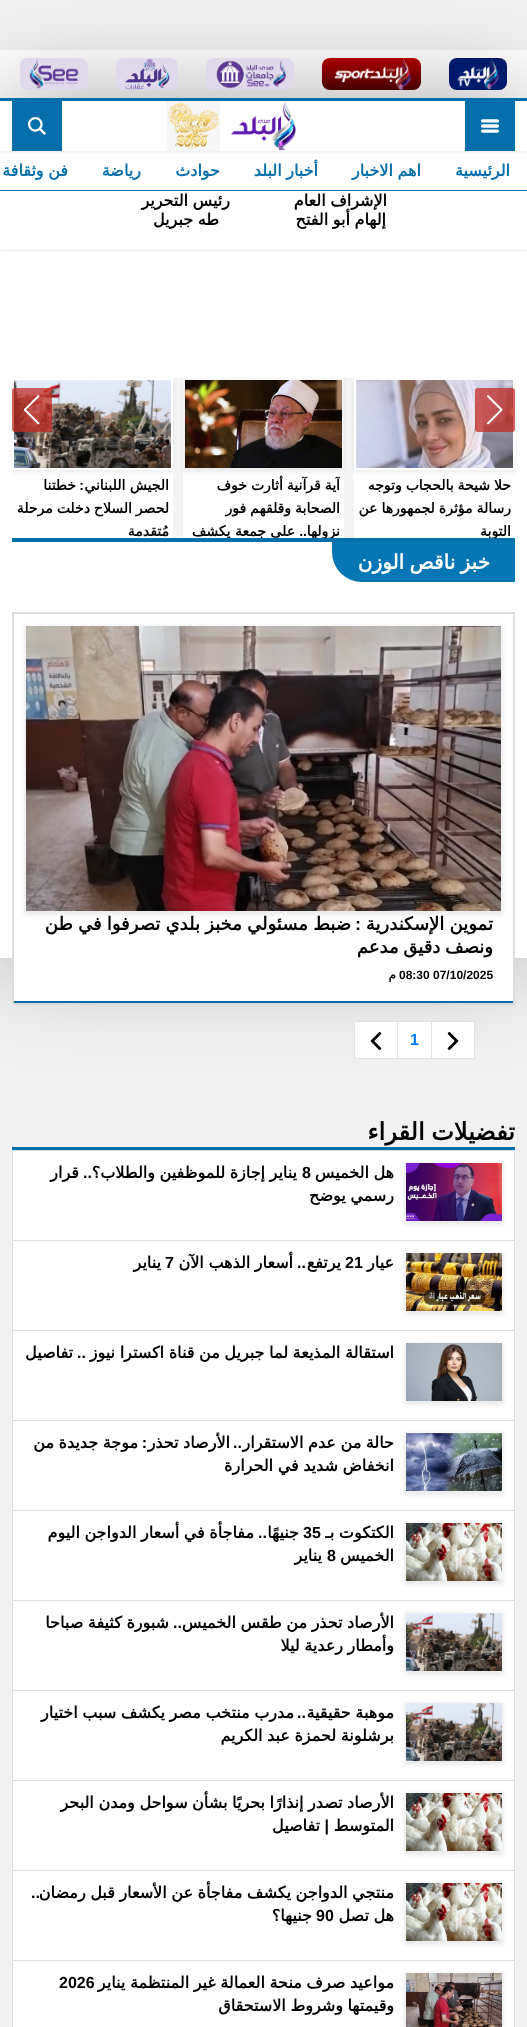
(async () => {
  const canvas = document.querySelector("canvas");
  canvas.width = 527;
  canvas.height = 2027;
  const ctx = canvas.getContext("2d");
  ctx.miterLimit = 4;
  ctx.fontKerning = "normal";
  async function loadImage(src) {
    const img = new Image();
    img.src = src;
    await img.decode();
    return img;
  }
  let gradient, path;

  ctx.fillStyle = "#f1f1f1";
  ctx.fillRect(0, 0, 527, 2027);
  ctx.fillStyle = "#ffffff";
  ctx.fillRect(0, 50, 527, 48);
  ctx.fillStyle = "rgba(0, 0, 0, 0.35)";
  ctx.filter = "blur(51.5px)";
  ctx.beginPath();
  ctx.rect(0, 98, 527, 860);
  ctx.fill();
  ctx.filter = "none";
  ctx.fillStyle = "#001a6b";
  ctx.beginPath();
  ctx.roundRect(449, 58, 58, 32, 8);
  ctx.fill();
  ctx.drawImage(await loadImage("img/1.png"), 457, 58, 42, 32);
  gradient = ctx.createLinearGradient(372, 58, 372, 90);
  gradient.addColorStop(0, "#ac0000");
  gradient.addColorStop(1, "#460000");
  ctx.fillStyle = gradient;
  ctx.beginPath();
  ctx.roundRect(322, 58, 99, 32, 8);
  ctx.fill();
  ctx.drawImage(await loadImage("img/2.png"), 334, 58, 77, 32);
  ctx.fillStyle = "#e0d9eb";
  ctx.beginPath();
  ctx.roundRect(206, 58, 88, 32, 8);
  ctx.fill();
  ctx.drawImage(await loadImage("img/3.png"), 215, 59, 71, 31);
  ctx.beginPath();
  ctx.roundRect(116, 58, 62, 32, 8);
  ctx.fill();
  ctx.drawImage(await loadImage("img/4.png"), 125, 58, 45, 32);
  ctx.beginPath();
  ctx.roundRect(20, 58, 68, 32, 8);
  ctx.fill();
  ctx.drawImage(await loadImage("img/5.png"), 29, 58, 50, 31);
  ctx.fillStyle = "#ffffff";
  ctx.fillRect(0, 101, 527, 857);
  ctx.save();
  ctx.beginPath();
  ctx.rect(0, 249, 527, 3);
  ctx.clip();
  ctx.fillStyle = "rgba(0, 0, 0, 0.07)";
  ctx.filter = "blur(2px)";
  ctx.beginPath();
  ctx.rect(0, 100, 527, 151);
  ctx.fill();
  ctx.filter = "none";
  ctx.restore();
  ctx.save();
  ctx.beginPath();
  ctx.rect(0, 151, 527, 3);
  ctx.clip();
  ctx.fillStyle = "rgba(0, 0, 0, 0.07)";
  ctx.filter = "blur(2px)";
  ctx.beginPath();
  ctx.rect(0, 100, 527, 53);
  ctx.fill();
  ctx.filter = "none";
  ctx.restore();
  ctx.fillStyle = "#056fab";
  ctx.fillRect(0, 98, 527, 3);
  ctx.fillRect(465, 101, 50, 50);
  ctx.drawImage(await loadImage("img/6.png"), 481, 119, 18, 14);
  ctx.drawImage(await loadImage("img/7.png"), 231, 101, 65, 50);
  ctx.drawImage(await loadImage("img/8.png"), 166, 101, 54, 50);
  ctx.fillRect(12, 101, 50, 50);
  ctx.drawImage(await loadImage("img/9.png"), 28, 117, 18, 18);
  ctx.fillRect(0, 190, 527, 1);
  ctx.fillStyle = "#f4f4f4";
  ctx.fillRect(173, 378, 181, 160);
  ctx.save();
  path = new Path2D("M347 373H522V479H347ZM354 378H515V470H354Z");
  ctx.clip(path, "evenodd");
  ctx.fillStyle = "rgba(0, 0, 0, 0.08)";
  ctx.filter = "blur(2px)";
  ctx.beginPath();
  ctx.rect(354, 380, 161, 92);
  ctx.fill();
  ctx.filter = "none";
  ctx.restore();
  ctx.drawImage(await loadImage("img/12.png"), 356, 380, 157, 88);
  ctx.fillStyle = "rgba(194, 43, 37, 0.74)";
  ctx.beginPath();
  ctx.roundRect(475, 388, 40, 44, 3);
  ctx.fill();
  ctx.drawImage(await loadImage("img/10.png"), 486, 395, 17, 30);
  ctx.save();
  path = new Path2D("M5 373H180V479H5ZM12 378H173V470H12Z");
  ctx.clip(path, "evenodd");
  ctx.fillStyle = "rgba(0, 0, 0, 0.08)";
  ctx.filter = "blur(2px)";
  ctx.beginPath();
  ctx.rect(12, 380, 161, 92);
  ctx.fill();
  ctx.filter = "none";
  ctx.restore();
  ctx.drawImage(await loadImage("img/14.png"), 14, 380, 157, 88);
  ctx.beginPath();
  ctx.roundRect(12, 388, 40, 44, 3);
  ctx.fill();
  ctx.drawImage(await loadImage("img/11.png"), 24, 395, 16, 30);
  ctx.fillStyle = "#ffffff";
  ctx.fillRect(183, 378, 161, 160);
  ctx.fillStyle = "rgba(0, 0, 0, 0.08)";
  ctx.filter = "blur(2px)";
  ctx.beginPath();
  ctx.rect(183, 380, 161, 92);
  ctx.fill();
  ctx.filter = "none";
  ctx.drawImage(await loadImage("img/13.png"), 185, 380, 157, 88);
  ctx.fillStyle = "#056fab";
  ctx.fillRect(12, 538, 503, 4);
  ctx.fillStyle = "#0776b5";
  ctx.beginPath();
  ctx.roundRect(332, 542, 183, 40, [0, 0, 0, 30]);
  ctx.fill();
  ctx.fillStyle = "#ffffff";
  ctx.fillRect(14, 958, 499, 43);
  ctx.strokeStyle = "#dcdcdc";
  ctx.strokeRect(12.5, 612.5, 502, 392);
  ctx.strokeRect(13.5, 613.5, 500, 390);
  ctx.fillStyle = "#056fab";
  ctx.fillRect(14, 1001, 499, 2);
  ctx.fillStyle = "rgba(0, 0, 0, 0.08)";
  ctx.filter = "blur(2px)";
  ctx.beginPath();
  ctx.rect(24, 626, 479, 289);
  ctx.fill();
  ctx.filter = "none";
  ctx.drawImage(await loadImage("img/15.png"), 26, 626, 475, 285);
  ctx.fillStyle = "#ffffff";
  ctx.beginPath();
  ctx.rect(431.5, 1021.5, 43, 37);
  ctx.fill();
  ctx.strokeStyle = "#dee2e6";
  ctx.stroke();
  ctx.drawImage(await loadImage("img/16.png"), 447, 1032, 12, 18);
  ctx.beginPath();
  ctx.rect(397.5, 1021.5, 34, 37);
  ctx.fill();
  ctx.stroke();
  ctx.beginPath();
  ctx.rect(354.5, 1021.5, 43, 37);
  ctx.fill();
  ctx.stroke();
  ctx.drawImage(await loadImage("img/17.png"), 370, 1032, 12, 18);
  ctx.fillStyle = "#056fab";
  ctx.fillRect(12, 1147, 503, 3);
  ctx.fillStyle = "#ffffff";
  ctx.beginPath();
  ctx.rect(12.5, 1150.5, 502, 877);
  ctx.fill();
  ctx.strokeStyle = "#dcdcdc";
  ctx.stroke();
  ctx.fillStyle = "#dcdcdc";
  ctx.fillRect(13, 1240, 501, 1);
  ctx.fillStyle = "rgba(0, 0, 0, 0.08)";
  ctx.filter = "blur(2px)";
  ctx.beginPath();
  ctx.rect(404, 1163, 100, 62);
  ctx.fill();
  ctx.filter = "none";
  ctx.drawImage(await loadImage("img/18.png"), 406, 1163, 96, 58);
  ctx.fillStyle = "#dcdcdc";
  ctx.fillRect(13, 1330, 501, 1);
  ctx.fillStyle = "rgba(0, 0, 0, 0.08)";
  ctx.filter = "blur(2px)";
  ctx.beginPath();
  ctx.rect(404, 1253, 100, 62);
  ctx.fill();
  ctx.filter = "none";
  ctx.drawImage(await loadImage("img/19.png"), 406, 1253, 96, 58);
  ctx.fillStyle = "#dcdcdc";
  ctx.fillRect(13, 1420, 501, 1);
  ctx.fillStyle = "rgba(0, 0, 0, 0.08)";
  ctx.filter = "blur(2px)";
  ctx.beginPath();
  ctx.rect(404, 1343, 100, 62);
  ctx.fill();
  ctx.filter = "none";
  ctx.drawImage(await loadImage("img/20.png"), 406, 1343, 96, 58);
  ctx.fillStyle = "#dcdcdc";
  ctx.fillRect(13, 1510, 501, 1);
  ctx.fillStyle = "rgba(0, 0, 0, 0.08)";
  ctx.filter = "blur(2px)";
  ctx.beginPath();
  ctx.rect(404, 1433, 100, 62);
  ctx.fill();
  ctx.filter = "none";
  ctx.drawImage(await loadImage("img/21.png"), 406, 1433, 96, 58);
  ctx.fillStyle = "#dcdcdc";
  ctx.fillRect(13, 1600, 501, 1);
  ctx.fillStyle = "rgba(0, 0, 0, 0.08)";
  ctx.filter = "blur(2px)";
  ctx.beginPath();
  ctx.rect(404, 1523, 100, 62);
  ctx.fill();
  ctx.filter = "none";
  ctx.drawImage(await loadImage("img/22.png"), 406, 1523, 96, 58);
  ctx.fillStyle = "#dcdcdc";
  ctx.fillRect(13, 1690, 501, 1);
  ctx.fillStyle = "rgba(0, 0, 0, 0.08)";
  ctx.filter = "blur(2px)";
  ctx.beginPath();
  ctx.rect(404, 1613, 100, 62);
  ctx.fill();
  ctx.filter = "none";
  ctx.drawImage(await loadImage("img/23.png"), 406, 1613, 96, 58);
  ctx.fillStyle = "#dcdcdc";
  ctx.fillRect(13, 1780, 501, 1);
  ctx.fillStyle = "rgba(0, 0, 0, 0.08)";
  ctx.filter = "blur(2px)";
  ctx.beginPath();
  ctx.rect(404, 1703, 100, 62);
  ctx.fill();
  ctx.filter = "none";
  ctx.drawImage(await loadImage("img/23.png"), 406, 1703, 96, 58);
  ctx.fillStyle = "#dcdcdc";
  ctx.fillRect(13, 1870, 501, 1);
  ctx.fillStyle = "rgba(0, 0, 0, 0.08)";
  ctx.filter = "blur(2px)";
  ctx.beginPath();
  ctx.rect(404, 1793, 100, 62);
  ctx.fill();
  ctx.filter = "none";
  ctx.drawImage(await loadImage("img/24.png"), 406, 1793, 96, 58);
  ctx.fillStyle = "#dcdcdc";
  ctx.fillRect(13, 1960, 501, 1);
  ctx.fillStyle = "rgba(0, 0, 0, 0.08)";
  ctx.filter = "blur(2px)";
  ctx.beginPath();
  ctx.rect(404, 1883, 100, 62);
  ctx.fill();
  ctx.filter = "none";
  ctx.drawImage(await loadImage("img/24.png"), 406, 1883, 96, 58);
  ctx.filter = "blur(2px)";
  ctx.beginPath();
  ctx.rect(404, 1973, 100, 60);
  ctx.fill();
  ctx.filter = "none";
  ctx.drawImage(await loadImage("img/25.png"), 406, 1973, 96, 54);
  ctx.direction = "rtl";
  ctx.font = "bold 16px DejaVu Sans";
  ctx.fillStyle = "#056fab";
  ctx.fillText("الرئيسية", 510, 176);
  ctx.wordSpacing = "-0.5px";
  ctx.fillText("اهم الاخبار", 421, 176);
  ctx.fillText("أخبار البلد", 318, 176);
  ctx.wordSpacing = "0px";
  ctx.fillText("حوادث", 220, 176);
  ctx.fillText("رياضة", 141, 176);
  ctx.wordSpacing = "-0.5px";
  ctx.fillText("فن وثقافة", 68, 176);
  ctx.fillStyle = "#000000";
  for (const [text, x, y] of [
    ["الإشراف العام", 387, 206],
    ["إلهام أبو الفتح", 386, 225],
    ["رئيس التحرير", 230, 206],
    ["طه جبريل", 219, 225],
  ]) {
    ctx.fillText(text, x, y);
  }
  ctx.font = "bold 14px DejaVu Sans";
  ctx.fillText("حلا شيحة بالحجاب وتوجه", 511, 490);
  ctx.save();
  ctx.beginPath();
  ctx.rect(358, 474, 153, 64);
  ctx.clip();
  ctx.fillText("رسالة مؤثرة لجمهورها عن", 511, 513);
  ctx.wordSpacing = "0px";
  ctx.fillText("التوبة", 511, 536);
  ctx.restore();
  ctx.save();
  ctx.beginPath();
  ctx.rect(187, 474, 153, 64);
  ctx.clip();
  ctx.fillText("آية قرآنية أثارت خوف", 340, 490);
  ctx.restore();
  ctx.fillText("الصحابة وقلقهم فور", 340, 513);
  ctx.save();
  ctx.beginPath();
  ctx.rect(187, 474, 153, 64);
  ctx.clip();
  ctx.wordSpacing = "0px";
  ctx.fillText("نزولها", 340, 536);
  ctx.restore();
  ctx.wordSpacing = "0px";
  ctx.font = "bold 14px Liberation Sans";
  ctx.fillText("..", 307, 536);
  ctx.save();
  ctx.beginPath();
  ctx.rect(187, 474, 153, 64);
  ctx.clip();
  ctx.font = "bold 14px DejaVu Sans";
  ctx.fillText("علي جمعة يكشف", 295, 536);
  ctx.restore();
  ctx.font = "bold 14px DejaVu Sans";
  ctx.fillText("الجيش اللبناني", 169, 490);
  ctx.font = "bold 14px Liberation Sans";
  ctx.fillText(":", 84, 490);
  ctx.font = "bold 14px DejaVu Sans";
  ctx.fillText("خطتنا", 76, 490);
  ctx.save();
  ctx.beginPath();
  ctx.rect(16, 474, 153, 64);
  ctx.clip();
  ctx.wordSpacing = "-0.5px";
  ctx.fillText("لحصر السلاح دخلت مرحلة", 169, 513);
  ctx.restore();
  ctx.fillText("مُتقدمة", 169, 536);
  ctx.wordSpacing = "-1px";
  ctx.font = "bold 20px DejaVu Sans";
  ctx.fillStyle = "#ffffff";
  ctx.fillText("خبز ناقص الوزن", 490, 569);
  ctx.wordSpacing = "-0.5px";
  ctx.font = "bold 18px DejaVu Sans";
  ctx.fillStyle = "#000000";
  ctx.fillText("تموين الإسكندرية", 493, 930);
  ctx.wordSpacing = "0px";
  ctx.font = "bold 18px Liberation Sans";
  ctx.fillText(":", 361, 930);
  ctx.wordSpacing = "-0.5px";
  ctx.font = "bold 18px DejaVu Sans";
  ctx.fillText("ضبط مسئولي مخبز بلدي تصرفوا في طن", 351, 930);
  ctx.wordSpacing = "-1px";
  ctx.fillText("ونصف دقيق مدعم", 493, 953);
  ctx.wordSpacing = "0px";
  ctx.direction = "ltr";
  ctx.font = "bold 12px Liberation Sans";
  ctx.fillText("08:30 07/10/2025", 399, 979);
  ctx.direction = "rtl";
  ctx.font = "bold 12px DejaVu Sans";
  ctx.fillText("م", 396, 979);
  ctx.direction = "ltr";
  ctx.font = "bold 16px Liberation Sans";
  ctx.fillStyle = "#007bff";
  ctx.fillText("1", 410, 1045);
  ctx.wordSpacing = "-1px";
  ctx.direction = "rtl";
  ctx.font = "bold 24px DejaVu Sans";
  ctx.fillStyle = "#000000";
  ctx.fillText("ﺗﻔﻀﻴﻼﺕ اﻟﻘﺮاء", 515, 1140);
  ctx.wordSpacing = "-0.5px";
  ctx.font = "bold 16px DejaVu Sans";
  ctx.fillText("هل الخميس", 394, 1178);
  ctx.wordSpacing = "0px";
  ctx.direction = "ltr";
  ctx.font = "bold 16px Liberation Sans";
  ctx.fillText("8", 302, 1178);
  ctx.wordSpacing = "-0.5px";
  ctx.direction = "rtl";
  ctx.font = "bold 16px DejaVu Sans";
  ctx.fillText("يناير إجازة للموظفين والطلاب؟", 297, 1178);
  ctx.wordSpacing = "0px";
  ctx.font = "bold 16px Liberation Sans";
  ctx.fillText("..", 92, 1178);
  ctx.font = "bold 16px DejaVu Sans";
  ctx.fillText("قرار", 79, 1178);
  ctx.wordSpacing = "-0.5px";
  ctx.fillText("رسمي يوضح", 394, 1201);
  ctx.wordSpacing = "0px";
  ctx.fillText("عيار", 394, 1268);
  ctx.direction = "ltr";
  ctx.font = "bold 16px Liberation Sans";
  ctx.fillText("21", 345, 1268);
  ctx.direction = "rtl";
  ctx.font = "bold 16px DejaVu Sans";
  ctx.fillText("يرتفع", 341, 1268);
  ctx.font = "bold 16px Liberation Sans";
  ctx.fillText("..", 306, 1268);
  ctx.wordSpacing = "-0.5px";
  ctx.font = "bold 16px DejaVu Sans";
  ctx.fillText("أسعار الذهب الآن", 293, 1268);
  ctx.wordSpacing = "0px";
  ctx.direction = "ltr";
  ctx.font = "bold 16px Liberation Sans";
  ctx.fillText("7", 165, 1268);
  ctx.direction = "rtl";
  ctx.font = "bold 16px DejaVu Sans";
  ctx.fillText("يناير", 161, 1268);
  ctx.save();
  ctx.beginPath();
  ctx.rect(23, 1341, 371, 69);
  ctx.clip();
  ctx.wordSpacing = "-0.5px";
  ctx.fillText("استقالة المذيعة لما جبريل من قناة اكسترا نيوز", 394, 1358);
  ctx.restore();
  ctx.font = "bold 16px Liberation Sans";
  ctx.fillText("..", 86, 1358);
  ctx.font = "bold 16px DejaVu Sans";
  ctx.fillText("تفاصيل", 73, 1358);
  ctx.font = "bold 16px Liberation Sans";
  ctx.fillText("..", 242, 1448);
  ctx.wordSpacing = "-0.5px";
  ctx.font = "bold 16px DejaVu Sans";
  ctx.fillText("حالة من عدم الاستقرار", 394, 1448);
  ctx.fillText("الأرصاد تحذر", 230, 1448);
  ctx.wordSpacing = "0px";
  ctx.font = "bold 16px Liberation Sans";
  ctx.fillText(":", 147, 1448);
  ctx.wordSpacing = "-0.5px";
  ctx.font = "bold 16px DejaVu Sans";
  ctx.fillText("موجة جديدة من", 138, 1448);
  ctx.save();
  ctx.beginPath();
  ctx.rect(23, 1431, 371, 69);
  ctx.clip();
  ctx.fillText("انخفاض شديد في الحرارة", 394, 1471);
  ctx.restore();
  ctx.fillText("الكتكوت بـ", 394, 1538);
  ctx.wordSpacing = "0px";
  ctx.direction = "ltr";
  ctx.font = "bold 16px Liberation Sans";
  ctx.fillText("35", 303, 1538);
  ctx.direction = "rtl";
  ctx.font = "bold 16px DejaVu Sans";
  ctx.fillText("جنيهًا", 299, 1538);
  ctx.font = "bold 16px Liberation Sans";
  ctx.fillText("..", 267, 1538);
  ctx.wordSpacing = "-0.5px";
  ctx.font = "bold 16px DejaVu Sans";
  ctx.fillText("مفاجأة في أسعار الدواجن اليوم", 254, 1538);
  ctx.wordSpacing = "0px";
  ctx.fillText("الخميس", 394, 1561);
  ctx.direction = "ltr";
  ctx.font = "bold 16px Liberation Sans";
  ctx.fillText("8", 327, 1561);
  ctx.direction = "rtl";
  ctx.font = "bold 16px DejaVu Sans";
  ctx.fillText("يناير", 322, 1561);
  ctx.save();
  ctx.beginPath();
  ctx.rect(23, 1611, 371, 69);
  ctx.clip();
  ctx.wordSpacing = "-0.5px";
  ctx.fillText("الأرصاد تحذر من طقس الخميس", 394, 1628);
  ctx.restore();
  ctx.font = "bold 16px Liberation Sans";
  ctx.fillText("..", 182, 1628);
  ctx.wordSpacing = "-0.5px";
  ctx.font = "bold 16px DejaVu Sans";
  for (const [text, x, y] of [
    ["شبورة كثيفة صباحا", 169, 1628],
    ["وأمطار رعدية ليلا", 394, 1651],
    ["موهبة حقيقية", 394, 1718],
  ]) {
    ctx.fillText(text, x, y);
  }
  ctx.wordSpacing = "0px";
  ctx.font = "bold 16px Liberation Sans";
  ctx.fillText("..", 306, 1718);
  ctx.wordSpacing = "-0.5px";
  ctx.font = "bold 16px DejaVu Sans";
  ctx.fillText("مدرب منتخب مصر يكشف سبب اختيار", 294, 1718);
  ctx.save();
  ctx.beginPath();
  ctx.rect(23, 1701, 371, 69);
  ctx.clip();
  ctx.fillText("برشلونة لحمزة عبد الكريم", 394, 1741);
  ctx.restore();
  ctx.save();
  ctx.beginPath();
  ctx.rect(23, 1791, 371, 69);
  ctx.clip();
  ctx.fillText("الأرصاد تصدر إنذارًا بحريًا بشأن سواحل ومدن البحر", 394, 1808);
  ctx.restore();
  ctx.wordSpacing = "0px";
  ctx.fillText("المتوسط", 394, 1831);
  ctx.font = "bold 16px Liberation Sans";
  ctx.fillText("|", 329, 1831);
  ctx.font = "bold 16px DejaVu Sans";
  ctx.fillText("تفاصيل", 320, 1831);
  ctx.save();
  ctx.beginPath();
  ctx.rect(23, 1881, 371, 69);
  ctx.clip();
  ctx.wordSpacing = "-0.5px";
  ctx.fillText("منتجي الدواجن يكشف مفاجأة عن الأسعار قبل رمضان", 394, 1898);
  ctx.restore();
  ctx.font = "bold 16px Liberation Sans";
  ctx.fillText("..", 40, 1898);
  ctx.wordSpacing = "-0.5px";
  ctx.font = "bold 16px DejaVu Sans";
  ctx.fillText("هل تصل", 394, 1921);
  ctx.wordSpacing = "0px";
  ctx.direction = "ltr";
  ctx.font = "bold 16px Liberation Sans";
  ctx.fillText("90", 316, 1921);
  ctx.direction = "rtl";
  ctx.font = "bold 16px DejaVu Sans";
  ctx.fillText("جنيها؟", 312, 1921);
  ctx.save();
  ctx.beginPath();
  ctx.rect(23, 1971, 371, 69);
  ctx.clip();
  ctx.wordSpacing = "-0.5px";
  ctx.fillText("مواعيد صرف منحة العمالة غير المنتظمة يناير", 394, 1988);
  ctx.restore();
  ctx.direction = "ltr";
  ctx.font = "bold 16px Liberation Sans";
  ctx.fillText("2026", 59, 1988);
  ctx.wordSpacing = "-0.5px";
  ctx.direction = "rtl";
  ctx.font = "bold 16px DejaVu Sans";
  ctx.fillText("وقيمتها وشروط الاستحقاق", 394, 2011);
})();
